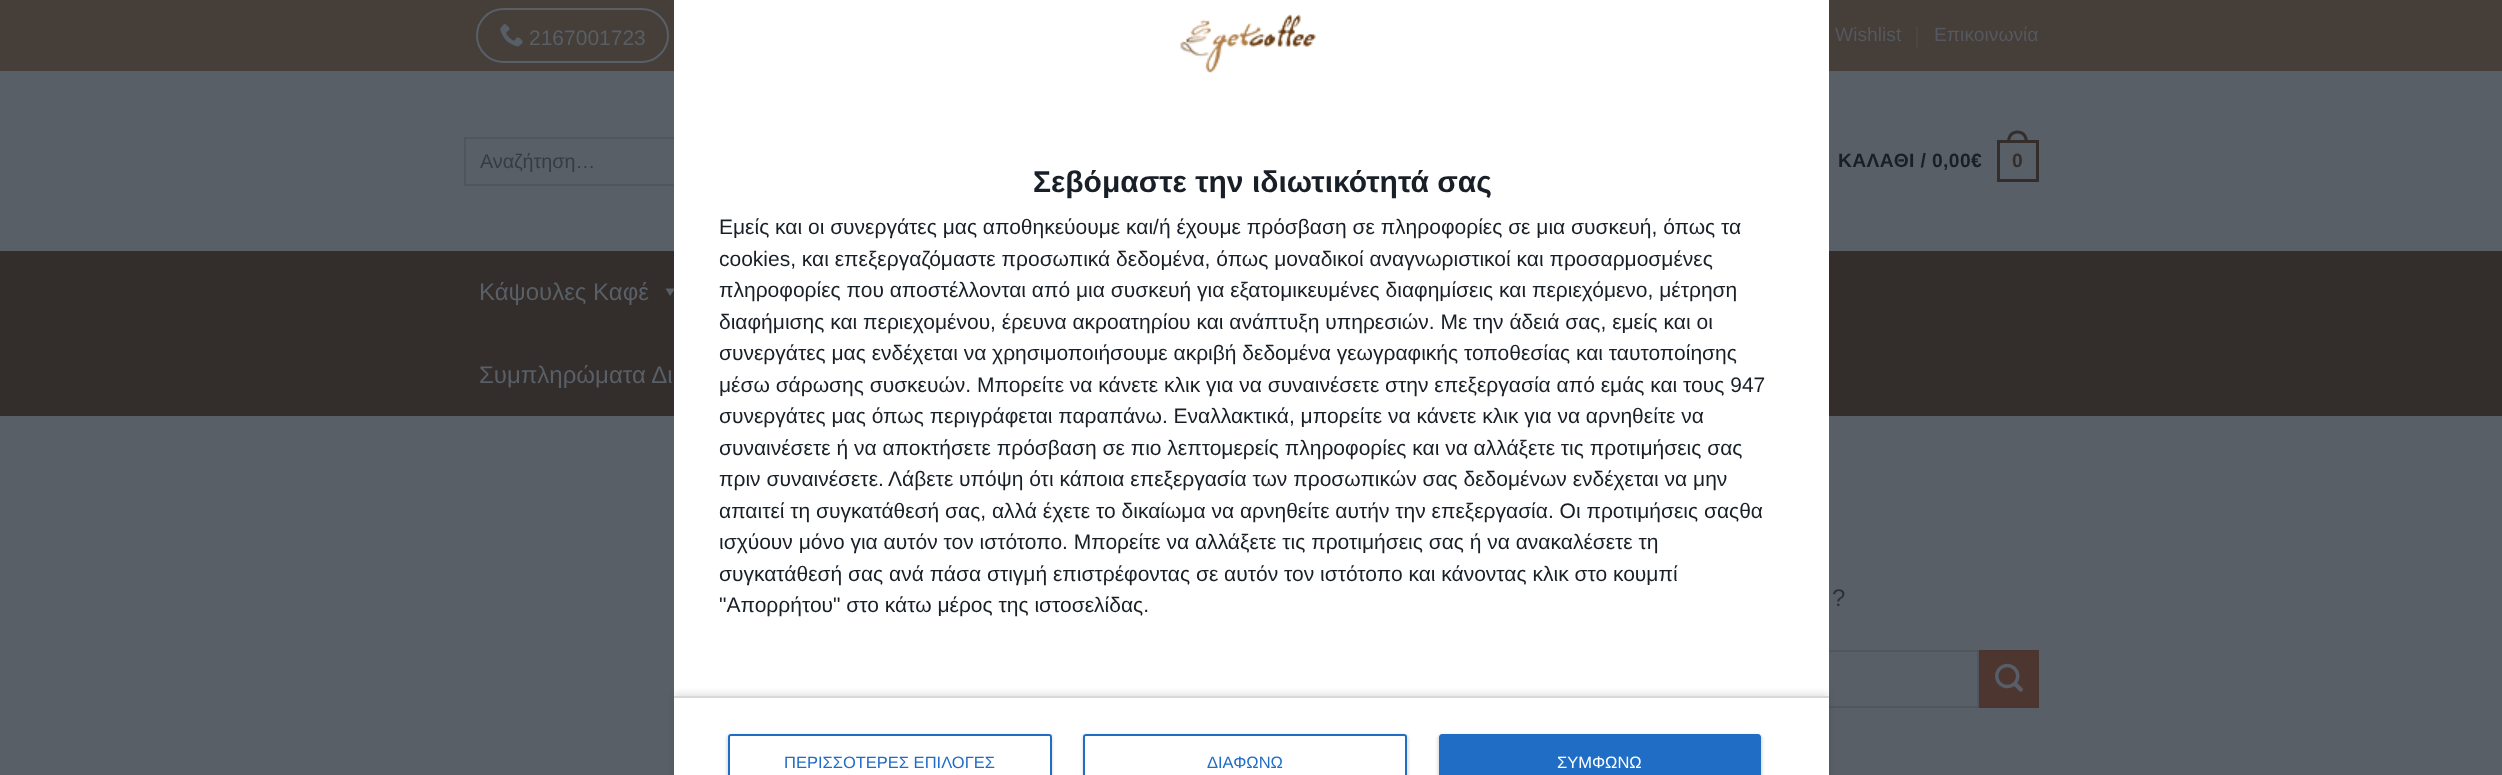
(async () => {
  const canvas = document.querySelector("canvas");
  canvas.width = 2502;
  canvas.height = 775;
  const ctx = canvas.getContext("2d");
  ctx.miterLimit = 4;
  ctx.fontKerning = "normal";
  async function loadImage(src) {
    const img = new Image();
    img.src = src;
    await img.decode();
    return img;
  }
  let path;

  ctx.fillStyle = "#595f67";
  ctx.fillRect(0, 0, 2502, 775);
  ctx.fillStyle = "#453e39";
  ctx.fillRect(0, 0, 2502, 71);
  ctx.beginPath();
  ctx.roundRect(477, 9, 191, 53, 26.5);
  ctx.strokeStyle = "#595f67";
  ctx.lineWidth = 2;
  ctx.stroke();
  ctx.drawImage(await loadImage("img/1.png"), 500, 24, 23, 23);
  ctx.fillStyle = "#494542";
  ctx.fillRect(1916, 26, 2, 22);
  ctx.strokeStyle = "#50565e";
  ctx.strokeRect(465, 138, 295, 47);
  ctx.strokeStyle = "#332e2b";
  ctx.lineWidth = 3;
  ctx.strokeRect(1998.5, 141.5, 39, 39);
  ctx.fillStyle = "#332e2b";
  path = new Path2D("M2017.5 130.5C2024.5 130.5 2028 136 2028 142.5H2007C2007 136 2010.5 130.5 2017.5 130.5ZM2017.5 133.5C2023 133.5 2025 138 2025 142.5H2010C2010 138 2012 133.5 2017.5 133.5Z");
  ctx.fill(path, "evenodd");
  ctx.fillRect(0, 251, 2502, 165);
  ctx.fillStyle = "#595f67";
  path = new Path2D("M675 288.5L670 296L665.5 288.5Z");
  ctx.fill(path);
  ctx.strokeStyle = "#50565e";
  ctx.lineWidth = 2;
  ctx.strokeRect(870, 651, 1108, 56);
  ctx.fillStyle = "#4e3630";
  ctx.beginPath();
  ctx.rect(1980, 651, 58, 56);
  ctx.fill();
  ctx.strokeStyle = "#4c352f";
  ctx.stroke();
  ctx.drawImage(await loadImage("img/2.png"), 1995, 663, 28, 29);
  ctx.fillStyle = "#ffffff";
  ctx.fillRect(674, 0, 1155, 775);
  ctx.drawImage(await loadImage("img/3.png"), 1180, 14, 136, 59);
  ctx.save();
  path = new Path2D("M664 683H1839V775H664ZM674 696H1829V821H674Z");
  ctx.clip(path, "evenodd");
  ctx.fillStyle = "rgba(0, 0, 0, 0.1)";
  ctx.filter = "blur(3px)";
  ctx.beginPath();
  ctx.rect(674, 693, 1155, 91);
  ctx.fill();
  ctx.filter = "none";
  ctx.restore();
  ctx.fillStyle = "#d8d8d8";
  ctx.fillRect(674, 696, 1155, 2);
  ctx.fillStyle = "rgba(0, 0, 0, 0.1)";
  ctx.filter = "blur(1px)";
  ctx.beginPath();
  ctx.roundRect(726, 734, 327, 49, 5);
  ctx.fill();
  ctx.filter = "none";
  ctx.fillStyle = "#ffffff";
  path = new Path2D("M731 734H1049C1050.5 734 1052 735.5 1052 737V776H728V737C728 735.5 729.5 734 731 734Z");
  ctx.fill(path);
  ctx.beginPath();
  ctx.roundRect(729, 735, 322, 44, 2);
  ctx.strokeStyle = "#206dc5";
  ctx.stroke();
  ctx.fillStyle = "rgba(0, 0, 0, 0.1)";
  ctx.filter = "blur(1px)";
  ctx.beginPath();
  ctx.roundRect(1082, 734, 327, 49, 5);
  ctx.fill();
  ctx.filter = "none";
  ctx.fillStyle = "#ffffff";
  path = new Path2D("M1086 734H1404C1405.5 734 1407 735.5 1407 737V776H1083V737C1083 735.5 1084.5 734 1086 734Z");
  ctx.fill(path);
  ctx.beginPath();
  ctx.roundRect(1084, 735, 322, 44, 2);
  ctx.stroke();
  ctx.fillStyle = "rgba(0, 0, 0, 0.1)";
  ctx.filter = "blur(1px)";
  ctx.beginPath();
  ctx.roundRect(1437, 734, 326, 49, 5);
  ctx.fill();
  ctx.filter = "none";
  ctx.fillStyle = "#206dc5";
  path = new Path2D("M1442 734H1758C1759.5 734 1761 735.5 1761 737V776H1439V737C1439 735.5 1440.5 734 1442 734Z");
  ctx.fill(path);
  ctx.font = "21px Liberation Sans";
  ctx.fillStyle = "#595f67";
  ctx.fillText("2167001723", 529, 45);
  ctx.font = "19.25px Liberation Sans";
  ctx.fillStyle = "#55585e";
  ctx.fillText("Wishlist", 1835, 41);
  ctx.fillText("Επικοινωνία", 1934, 41);
  ctx.font = "19.75px Liberation Sans";
  ctx.fillStyle = "#363c44";
  ctx.fillText("Αναζήτηση…", 480, 168);
  ctx.letterSpacing = "0.4px";
  ctx.font = "bold 19.25px Liberation Sans";
  ctx.fillStyle = "#191f27";
  ctx.fillText("ΚΑΛΑΘΙ / 0,00€", 1838, 167);
  ctx.fillStyle = "#332e2b";
  ctx.fillText("0", 2012, 167);
  ctx.letterSpacing = "0px";
  ctx.font = "24px Liberation Sans";
  ctx.fillStyle = "#595f67";
  ctx.fillText("Κάψουλες Καφέ", 479, 300);
  ctx.fillText("Συμπληρώματα Δι", 479, 383);
  ctx.fillStyle = "#2b313a";
  ctx.fillText("?", 1832, 606);
  ctx.font = "bold 30px Liberation Sans";
  ctx.fillStyle = "#191f27";
  ctx.fillText("Σεβόμαστε την ιδιωτικότητά σας", 1033, 192);
  ctx.font = "21px Liberation Sans";
  for (const [text, x, y] of [
    ["Εμείς και οι συνεργάτες μας αποθηκεύουμε και/ή έχουμε πρόσβαση σε πληροφορίες σε μια συσκευή, όπως τα", 719, 234],
    ["cookies, και επεξεργαζόμαστε προσωπικά δεδομένα, όπως μοναδικοί αναγνωριστικοί και προσαρμοσμένες", 719, 266],
    ["πληροφορίες που αποστέλλονται από μια συσκευή για εξατομικευμένες διαφημίσεις και περιεχόμενο, μέτρηση", 719, 297],
    ["διαφήμισης και περιεχομένου, έρευνα ακροατηρίου και ανάπτυξη υπηρεσιών. Με την άδειά σας, εμείς και οι", 719, 329],
    ["συνεργάτες μας ενδέχεται να χρησιμοποιήσουμε ακριβή δεδομένα γεωγραφικής τοποθεσίας και ταυτοποίησης", 719, 360],
    ["μέσω σάρωσης συσκευών. Μπορείτε να κάνετε κλικ για να συναινέσετε στην επεξεργασία από εμάς και τους 947", 719, 392],
    ["συνεργάτες μας όπως περιγράφεται παραπάνω. Εναλλακτικά, μπορείτε να κάνετε κλικ για να αρνηθείτε να", 719, 423],
    ["συναινέσετε ή να αποκτήσετε πρόσβαση σε πιο λεπτομερείς πληροφορίες και να αλλάξετε τις προτιμήσεις σας", 719, 455],
    ["πριν συναινέσετε.", 719, 486],
    ["Λάβετε υπόψη ότι κάποια επεξεργασία των προσωπικών σας δεδομένων ενδέχεται να μην", 888, 486],
    ["απαιτεί τη συγκατάθεσή σας, αλλά έχετε το δικαίωμα να αρνηθείτε αυτήν την επεξεργασία. Οι προτιμήσεις σαςθα", 719, 518],
    ["ισχύουν μόνο για αυτόν τον ιστότοπο. Μπορείτε να αλλάξετε τις προτιμήσεις σας ή να ανακαλέσετε τη", 719, 549],
    ["συγκατάθεσή σας ανά πάσα στιγμή επιστρέφοντας σε αυτόν τον ιστότοπο και κάνοντας κλικ στο κουμπί", 719, 581],
    ["\"Απορρήτου\" στο κάτω μέρος της ιστοσελίδας.", 719, 612],
  ]) {
    ctx.fillText(text, x, y);
  }
  ctx.font = "16.5px Liberation Sans";
  ctx.fillStyle = "#206dc5";
  ctx.fillText("ΠΕΡΙΣΣΟΤΕΡΕΣ ΕΠΙΛΟΓΕΣ", 784, 768);
  ctx.fillText("ΔΙΑΦΩΝΩ", 1207, 768);
  ctx.fillStyle = "#ffffff";
  ctx.fillText("ΣΥΜΦΩΝΩ", 1557, 768);
})();
